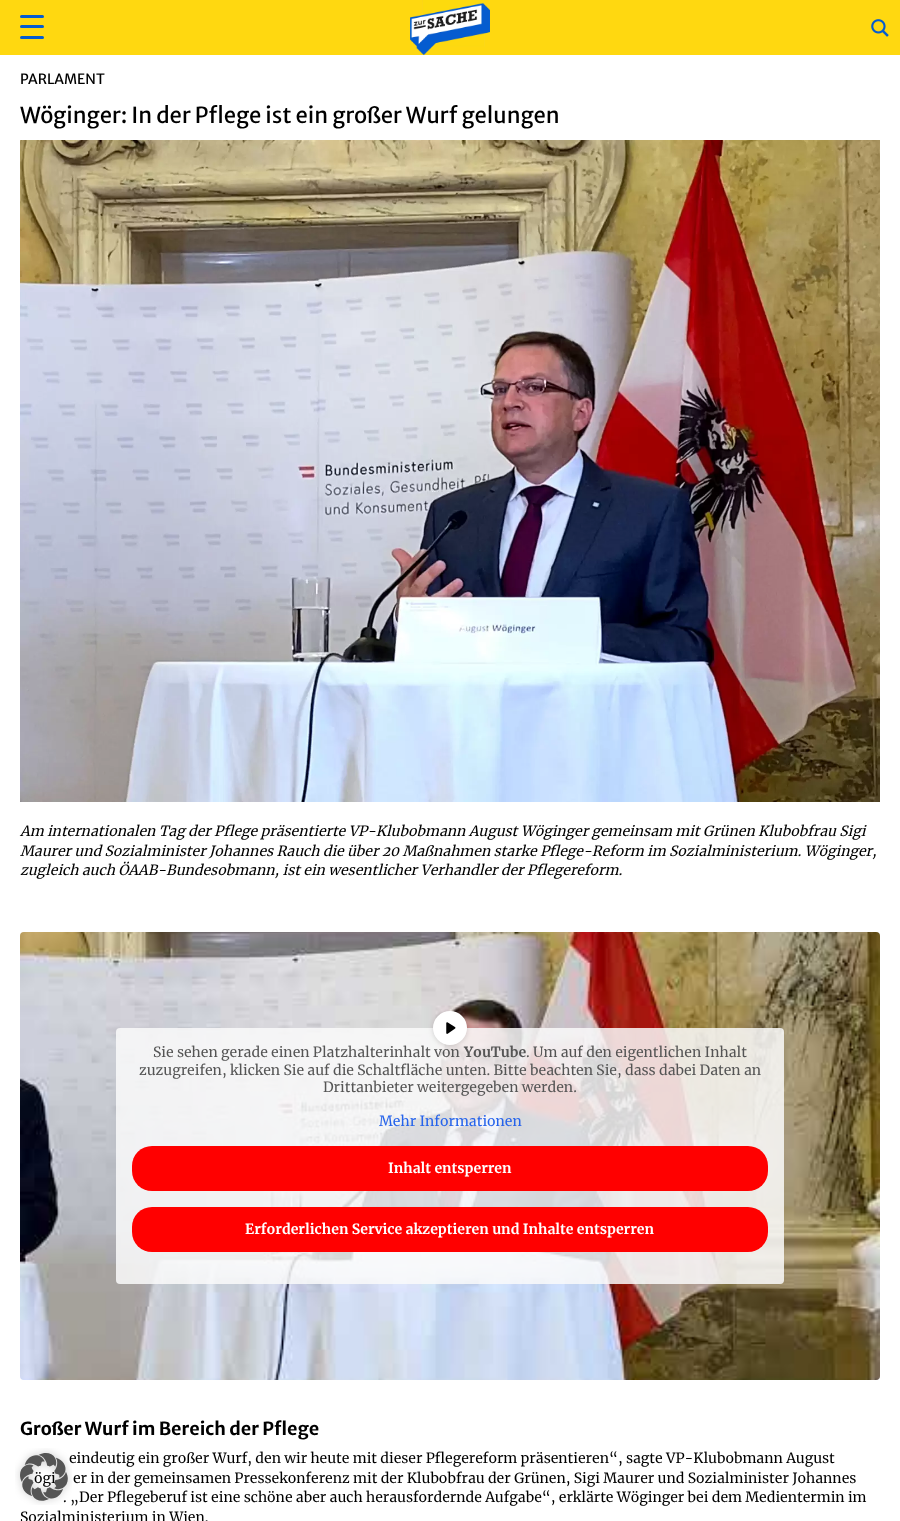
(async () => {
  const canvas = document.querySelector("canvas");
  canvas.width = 900;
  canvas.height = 1521;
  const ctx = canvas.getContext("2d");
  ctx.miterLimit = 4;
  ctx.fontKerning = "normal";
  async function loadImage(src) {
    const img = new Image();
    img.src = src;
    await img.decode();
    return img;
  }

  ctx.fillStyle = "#ffffff";
  ctx.fillRect(0, 0, 900, 1521);
  ctx.fillStyle = "#ffd810";
  ctx.fillRect(0, 0, 900, 55);
  ctx.fillStyle = "#055cd0";
  ctx.beginPath();
  ctx.roundRect(20, 25, 24, 3, 1.5);
  ctx.fill();
  ctx.beginPath();
  ctx.roundRect(20, 15, 24, 3, 1.5);
  ctx.fill();
  ctx.beginPath();
  ctx.roundRect(20, 36, 24, 3, 1.5);
  ctx.fill();
  ctx.drawImage(await loadImage("img/1.png"), 410, 0, 80, 55);
  ctx.drawImage(await loadImage("img/2.png"), 871, 19, 18, 18);
  ctx.drawImage(await loadImage("img/3.png"), 20, 140, 860, 662);
  ctx.drawImage(await loadImage("img/4.png"), 20, 932, 860, 448);
  ctx.fillStyle = "rgba(250, 250, 250, 0.85)";
  ctx.beginPath();
  ctx.roundRect(116, 1028, 668, 256, 4);
  ctx.fill();
  ctx.fillStyle = "rgba(0, 0, 0, 0.15)";
  ctx.filter = "blur(2.5px)";
  ctx.beginPath();
  ctx.roundRect(433, 1012, 34, 34, 17);
  ctx.fill();
  ctx.filter = "none";
  ctx.fillStyle = "#ffffff";
  ctx.beginPath();
  ctx.arc(450, 1028, 17, 0, Math.PI * 2);
  ctx.fill();
  ctx.drawImage(await loadImage("img/5.png"), 446, 1022, 10, 12);
  ctx.fillStyle = "#ff0000";
  ctx.beginPath();
  ctx.roundRect(132, 1146, 636, 45, 20);
  ctx.fill();
  ctx.beginPath();
  ctx.roundRect(132, 1207, 636, 45, 20);
  ctx.fill();
  ctx.font = "14px Merriweather Sans";
  ctx.fillStyle = "#000000";
  ctx.fillText("PARLAMENT", 20, 84);
  ctx.font = "22px Merriweather Sans";
  ctx.fillText("Wöginger: In der Pflege ist ein großer Wurf gelungen", 20, 123);
  ctx.font = "italic 14px Merriweather";
  for (const [text, x, y] of [
    ["Am internationalen Tag der Pflege präsentierte VP-Klubobmann August Wöginger gemeinsam mit Grünen Klubobfrau Sigi", 20, 836],
    ["Maurer und Sozialminister Johannes Rauch die über 20 Maßnahmen starke Pflege-Reform im Sozialministerium. Wöginger,", 20, 856],
    ["zugleich auch ÖAAB-Bundesobmann, ist ein wesentlicher Verhandler der Pflegereform.", 20, 875],
  ]) {
    ctx.fillText(text, x, y);
  }
  ctx.font = "14px Merriweather";
  ctx.fillStyle = "#555555";
  ctx.fillText("Sie sehen gerade einen Platzhalterinhalt von", 153, 1057);
  ctx.font = "bold 14px Merriweather";
  ctx.fillText("YouTube", 464, 1057);
  ctx.font = "14px Merriweather";
  for (const [text, x, y] of [
    [". Um auf den eigentlichen Inhalt", 526, 1057],
    ["zuzugreifen, klicken Sie auf die Schaltfläche unten. Bitte beachten Sie, dass dabei Daten an", 139, 1075],
    ["Drittanbieter weitergegeben werden.", 323, 1092],
  ]) {
    ctx.fillText(text, x, y);
  }
  ctx.fillStyle = "#2563eb";
  ctx.fillText("Mehr Informationen", 379, 1126);
  ctx.font = "bold 14px Merriweather";
  ctx.fillStyle = "#ffffff";
  ctx.fillText("Inhalt entsperren", 388, 1173);
  ctx.fillText("Erforderlichen Service akzeptieren und Inhalte entsperren", 245, 1234);
  ctx.font = "bold 18px Merriweather Sans";
  ctx.fillStyle = "#000000";
  ctx.fillText("Großer Wurf im Bereich der Pflege", 20, 1435);
  ctx.font = "14px Merriweather";
  for (const [text, x, y] of [
    ["eindeutig ein großer Wurf, den wir heute mit dieser Pflegereform präsentieren“, sagte VP-Klubobmann August", 69, 1463],
    ["ögi", 34, 1483],
    ["er in der gemeinsamen Pressekonferenz mit der Klubobfrau der Grünen, Sigi Maurer und Sozialminister Johannes", 73, 1483],
    [". „Der Pflegeberuf ist eine schöne aber auch herausfordernde Aufgabe“, erklärte Wöginger bei dem Medientermin im", 63, 1502],
    ["Sozialministerium in Wien.", 20, 1522],
  ]) {
    ctx.fillText(text, x, y);
  }
  ctx.drawImage(await loadImage("img/6.png"), 15, 1448, 57, 57);
})();
